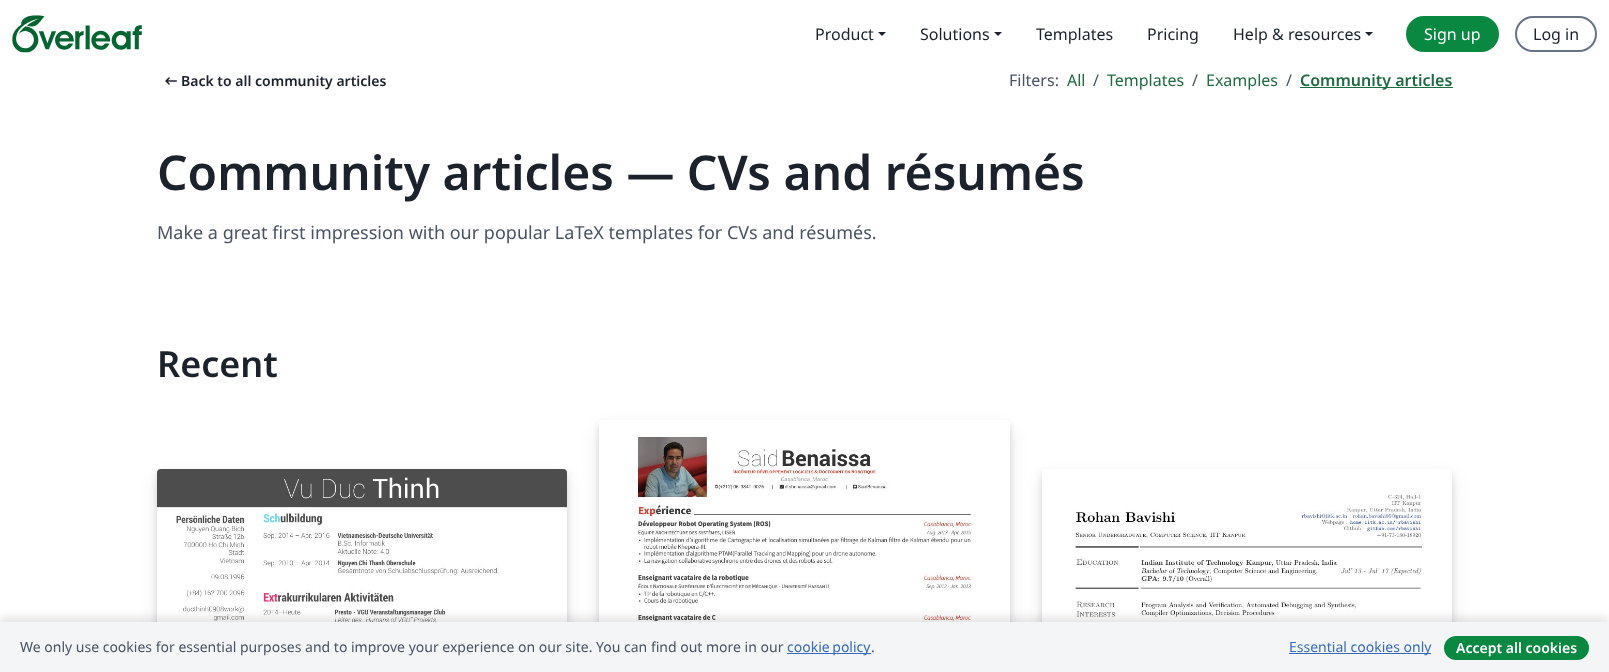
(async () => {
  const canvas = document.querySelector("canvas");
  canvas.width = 1609;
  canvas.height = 672;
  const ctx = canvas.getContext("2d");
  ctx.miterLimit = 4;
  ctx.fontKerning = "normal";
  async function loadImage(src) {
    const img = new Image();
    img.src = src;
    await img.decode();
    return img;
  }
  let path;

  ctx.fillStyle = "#ffffff";
  ctx.fillRect(0, 0, 1609, 672);
  ctx.drawImage(await loadImage("img/1.png"), 12, 15, 130, 38);
  ctx.fillStyle = "#1b222c";
  path = new Path2D("M878 32H886L882 36Z");
  ctx.fill(path);
  path = new Path2D("M994 32H1002L998 36Z");
  ctx.fill(path);
  path = new Path2D("M1365 32H1373L1369 36Z");
  ctx.fill(path);
  ctx.fillStyle = "#098842";
  ctx.beginPath();
  ctx.roundRect(1407, 17, 91, 34, 17);
  ctx.fill();
  ctx.strokeStyle = "#098842";
  ctx.lineWidth = 2;
  ctx.stroke();
  ctx.beginPath();
  ctx.roundRect(1516, 17, 80, 34, 17);
  ctx.strokeStyle = "#677283";
  ctx.stroke();
  ctx.drawImage(await loadImage("img/2.png"), 165, 77, 12, 8);
  ctx.fillStyle = "#1e6b41";
  ctx.fillRect(1300, 87, 153, 1);
  ctx.fillStyle = "rgba(30, 37, 48, 0.12)";
  ctx.filter = "blur(3px)";
  ctx.beginPath();
  ctx.roundRect(157, 473, 410, 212, 4);
  ctx.fill();
  ctx.filter = "none";
  ctx.filter = "blur(8px)";
  ctx.beginPath();
  ctx.roundRect(157, 477, 410, 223, 4);
  ctx.fill();
  ctx.filter = "none";
  ctx.drawImage(await loadImage("img/3.png"), 157, 469, 410, 153);
  ctx.save();
  path = new Path2D("M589 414H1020V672H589ZM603 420H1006C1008 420 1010 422 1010 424V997C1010 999 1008 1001 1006 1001H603C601 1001 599 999 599 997V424C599 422 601 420 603 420Z");
  ctx.clip(path, "evenodd");
  ctx.filter = "blur(3px)";
  ctx.beginPath();
  ctx.roundRect(599, 424, 411, 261, 4);
  ctx.fill();
  ctx.filter = "none";
  ctx.restore();
  ctx.save();
  path = new Path2D("M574 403H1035V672H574ZM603 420H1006C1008 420 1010 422 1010 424V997C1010 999 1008 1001 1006 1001H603C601 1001 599 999 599 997V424C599 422 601 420 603 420Z");
  ctx.clip(path, "evenodd");
  ctx.filter = "blur(8px)";
  ctx.beginPath();
  ctx.roundRect(599, 428, 411, 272, 4);
  ctx.fill();
  ctx.filter = "none";
  ctx.restore();
  ctx.drawImage(await loadImage("img/4.png"), 632, 437, 340, 185);
  ctx.save();
  path = new Path2D("M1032 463H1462V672H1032ZM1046 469H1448C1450 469 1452 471 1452 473V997C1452 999 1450 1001 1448 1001H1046C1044 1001 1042 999 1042 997V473C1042 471 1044 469 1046 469Z");
  ctx.clip(path, "evenodd");
  ctx.filter = "blur(3px)";
  ctx.beginPath();
  ctx.roundRect(1042, 473, 410, 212, 4);
  ctx.fill();
  ctx.filter = "none";
  ctx.restore();
  ctx.save();
  path = new Path2D("M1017 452H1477V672H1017ZM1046 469H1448C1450 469 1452 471 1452 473V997C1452 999 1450 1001 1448 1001H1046C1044 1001 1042 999 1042 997V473C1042 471 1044 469 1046 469Z");
  ctx.clip(path, "evenodd");
  ctx.filter = "blur(8px)";
  ctx.beginPath();
  ctx.roundRect(1042, 477, 410, 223, 4);
  ctx.fill();
  ctx.filter = "none";
  ctx.restore();
  ctx.drawImage(await loadImage("img/5.png"), 1075, 494, 347, 128);
  ctx.fillStyle = "rgba(0, 0, 0, 0.1)";
  ctx.filter = "blur(4px)";
  ctx.beginPath();
  ctx.rect(0, 617, 1609, 50);
  ctx.fill();
  ctx.filter = "none";
  for (const [x, y, w, h, color] of [
    [0, 622, 1609, 50, "#f4f5f6"],
    [787, 653, 84, 1, "#366cbf"],
    [1289, 653, 142, 1, "#366cbf"],
  ]) {
    ctx.fillStyle = color;
    ctx.fillRect(x, y, w, h);
  }
  ctx.fillStyle = "#098842";
  ctx.beginPath();
  ctx.roundRect(1444, 636, 145, 24, 12);
  ctx.fill();
  ctx.font = "16px Noto Sans";
  ctx.fillStyle = "#1b222c";
  for (const [text, x, y] of [
    ["Product", 815, 40],
    ["Solutions", 920, 40],
    ["Templates", 1036, 40],
    ["Pricing", 1147, 40],
    ["Help & resources", 1233, 40],
  ]) {
    ctx.fillText(text, x, y);
  }
  ctx.fillStyle = "#ffffff";
  ctx.fillText("Sign up", 1424, 40);
  ctx.fillStyle = "#1b222c";
  ctx.fillText("Log in", 1533, 40);
  ctx.font = "600 14px Noto Sans";
  ctx.fillText("Back to all community articles", 181, 86);
  ctx.font = "16px Noto Sans";
  ctx.fillStyle = "#495365";
  ctx.fillText("Filters:", 1009, 86);
  ctx.fillStyle = "#1e6b41";
  ctx.fillText("All", 1067, 86);
  ctx.fillStyle = "#495365";
  ctx.fillText("/", 1093, 86);
  ctx.fillStyle = "#1e6b41";
  ctx.fillText("Templates", 1107, 86);
  ctx.fillStyle = "#495365";
  ctx.fillText("/", 1192, 86);
  ctx.fillStyle = "#1e6b41";
  ctx.fillText("Examples", 1206, 86);
  ctx.fillStyle = "#495365";
  ctx.fillText("/", 1286, 86);
  ctx.font = "600 16px Noto Sans";
  ctx.fillStyle = "#1e6b41";
  ctx.fillText("Community articles", 1300, 86);
  ctx.font = "600 48px Noto Sans";
  ctx.fillStyle = "#1b222c";
  ctx.fillText("Community articles — CVs and résumés", 157, 190);
  ctx.font = "18px Noto Sans";
  ctx.fillStyle = "#495365";
  ctx.fillText("Make a great first impression with our popular LaTeX templates for CVs and résumés.", 157, 239);
  ctx.font = "600 36px Noto Sans";
  ctx.fillStyle = "#1b222c";
  ctx.fillText("Recent", 157, 377);
  ctx.font = "14px Noto Sans";
  ctx.fillStyle = "#495365";
  ctx.fillText("We only use cookies for essential purposes and to improve your experience on our site. You can find out more in our", 20, 652);
  ctx.wordSpacing = "-1px";
  ctx.fillStyle = "#366cbf";
  ctx.fillText("cookie policy", 787, 652);
  ctx.wordSpacing = "0px";
  ctx.fillStyle = "#495365";
  ctx.fillText(".", 871, 652);
  ctx.fillStyle = "#366cbf";
  ctx.fillText("Essential cookies only", 1289, 652);
  ctx.font = "600 14px Noto Sans";
  ctx.fillStyle = "#ffffff";
  ctx.fillText("Accept all cookies", 1456, 653);
})();
